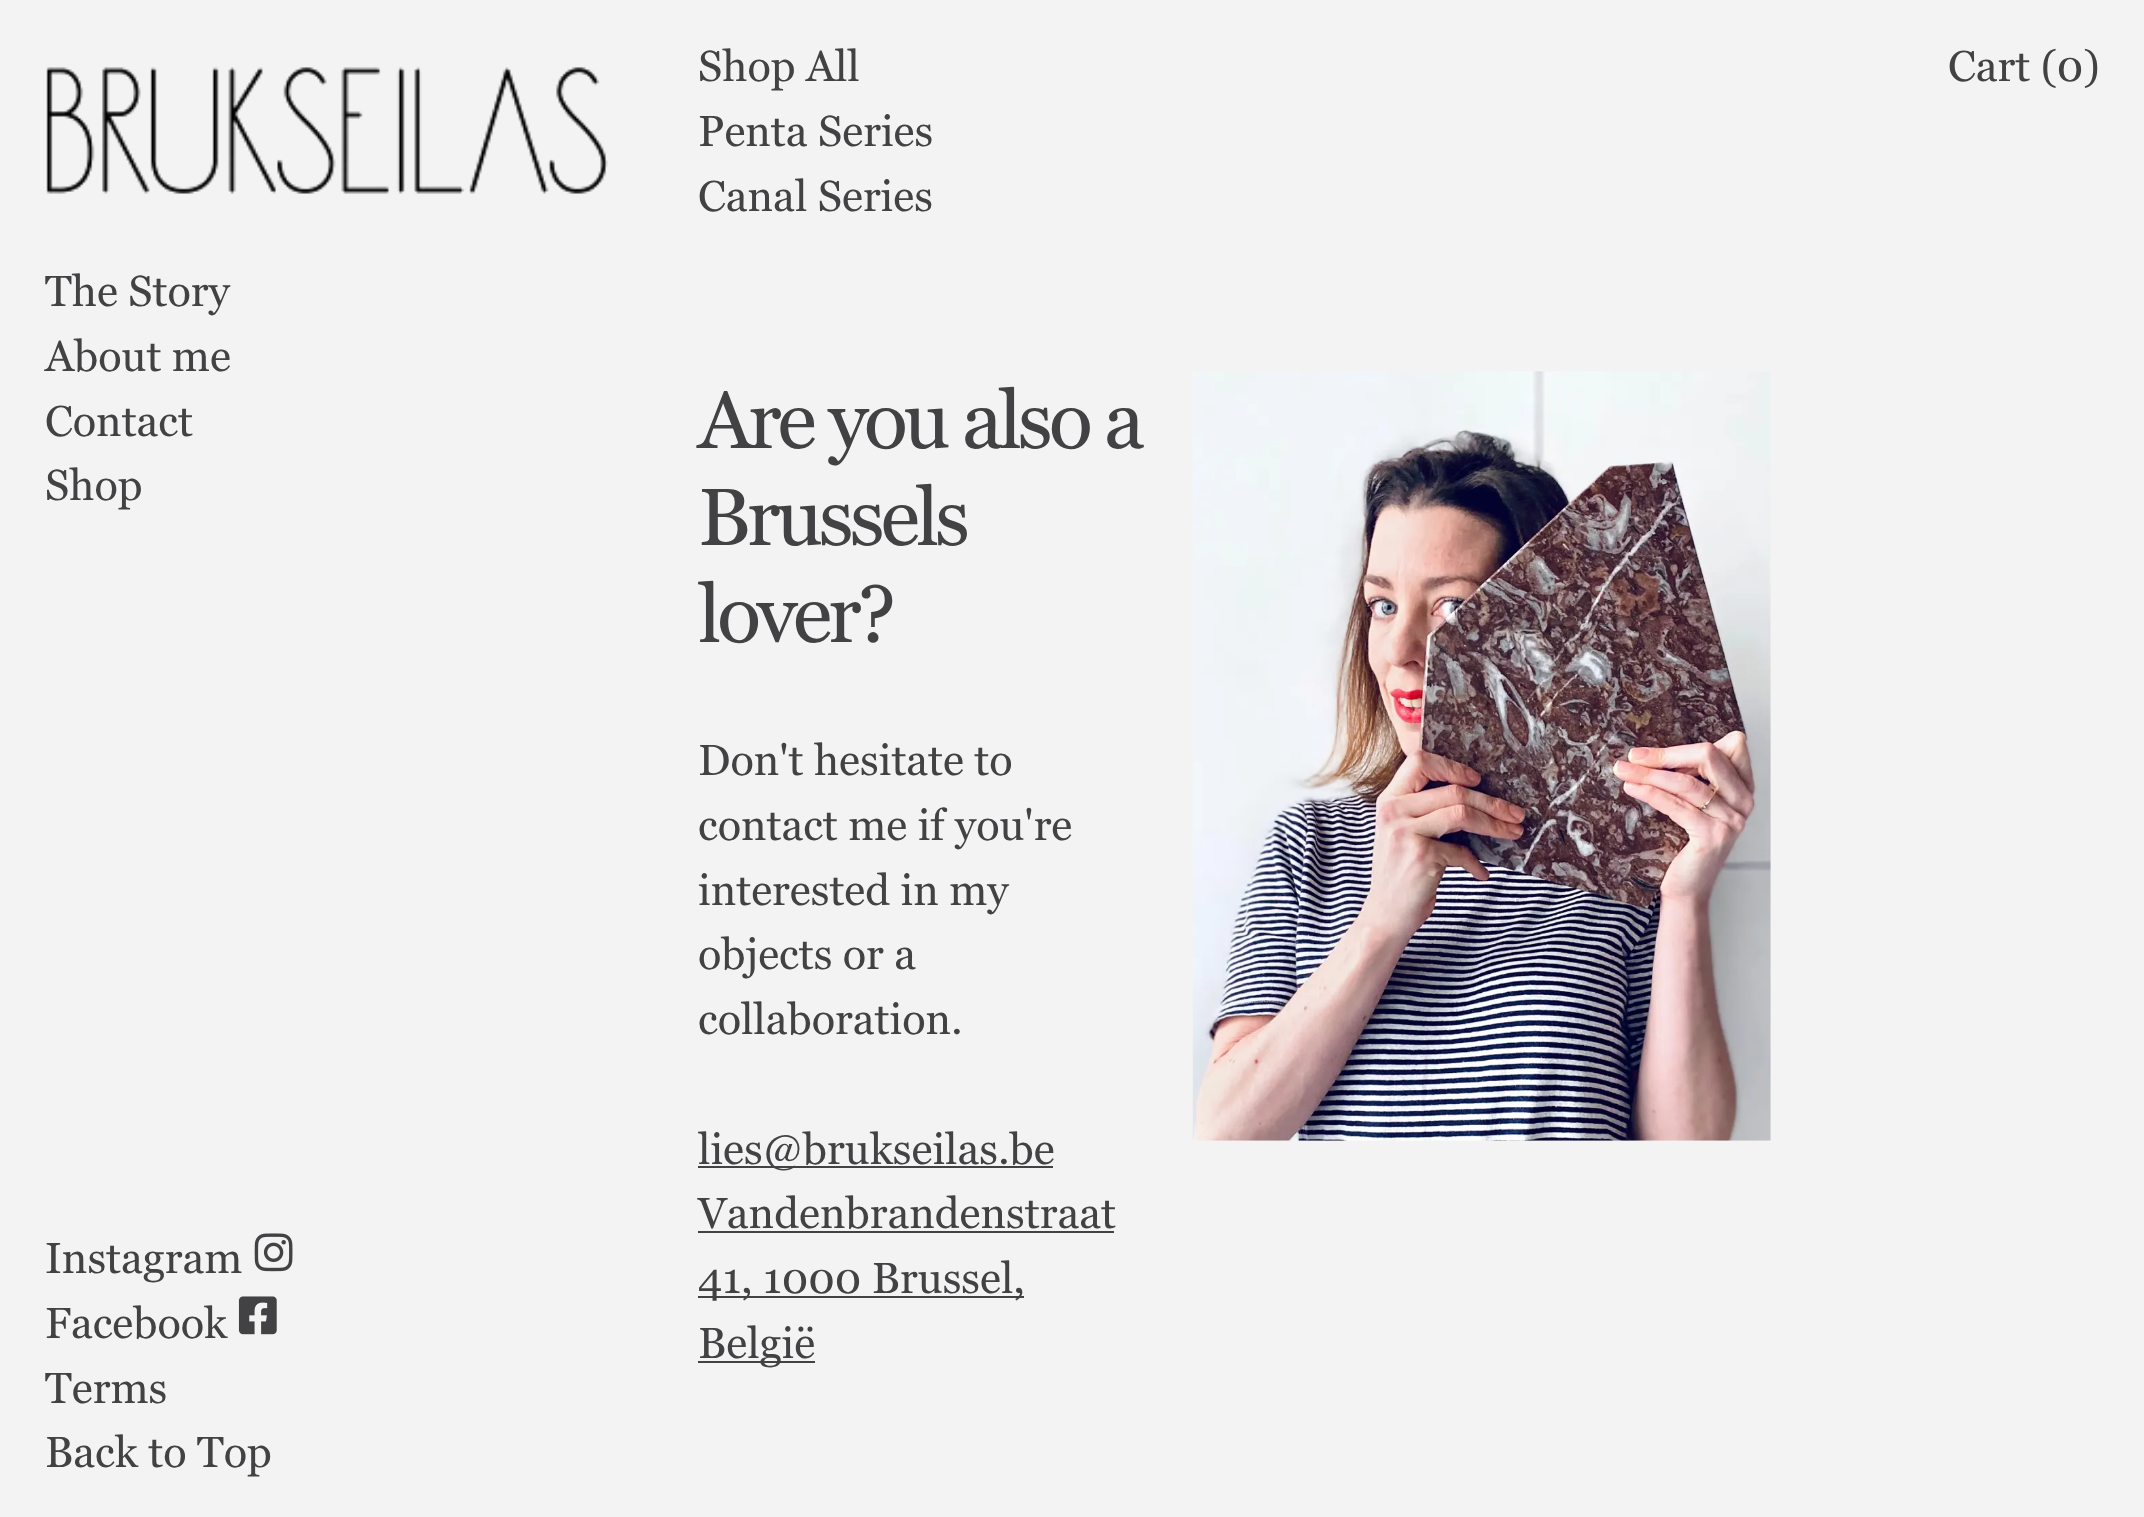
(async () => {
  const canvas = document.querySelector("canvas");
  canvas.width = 2144;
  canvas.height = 1517;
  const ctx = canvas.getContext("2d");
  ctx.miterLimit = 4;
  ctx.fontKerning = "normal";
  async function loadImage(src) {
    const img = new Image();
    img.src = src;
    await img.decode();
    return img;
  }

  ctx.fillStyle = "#f3f3f3";
  ctx.fillRect(0, 0, 2144, 1517);
  ctx.drawImage(await loadImage("img/1.png"), 46, 67, 562, 127);
  for (const [x, y, w, h, color] of [
    [698, 1166, 355, 2, "#424244"],
    [698, 1231, 416, 2, "#424244"],
    [698, 1296, 326, 2, "#424244"],
    [698, 1361, 117, 2, "#424244"],
  ]) {
    ctx.fillStyle = color;
    ctx.fillRect(x, y, w, h);
  }
  ctx.drawImage(await loadImage("img/2.png"), 1192, 371, 579, 770);
  ctx.drawImage(await loadImage("img/3.png"), 254, 1233, 39, 39);
  ctx.drawImage(await loadImage("img/4.png"), 238, 1296, 39, 39);
  ctx.font = "43.25px Georgia";
  for (const [text, x, y] of [
    ["Shop All", 698, 81],
    ["Penta Series", 698, 146],
    ["Canal Series", 698, 211],
    ["Cart (0)", 1948, 81],
    ["The Story", 45, 306],
    ["About me", 45, 371],
    ["Contact", 45, 436],
    ["Shop", 45, 500],
  ]) {
    ctx.fillText(text, x, y);
  }
  ctx.letterSpacing = "-4px";
  ctx.font = "81px Georgia";
  for (const [text, x, y] of [
    ["Are you also a", 698, 448],
    ["Brussels", 698, 545],
    ["lover?", 698, 642],
  ]) {
    ctx.fillText(text, x, y);
  }
  ctx.letterSpacing = "0px";
  ctx.font = "43.25px Georgia";
  for (const [text, x, y] of [
    ["Don't hesitate to", 698, 775],
    ["contact me if you're", 698, 840],
    ["interested in my", 698, 905],
    ["objects or a", 698, 969],
    ["collaboration.", 698, 1034],
    ["lies@brukseilas.be", 698, 1164],
    ["Vandenbrandenstraat", 698, 1228],
    ["41, 1000 Brussel,", 698, 1293],
    ["België", 698, 1358],
    ["Instagram", 45, 1273],
    ["Facebook", 45, 1338],
    ["Terms", 45, 1403],
    ["Back to Top", 45, 1467],
  ]) {
    ctx.fillText(text, x, y);
  }
})();
